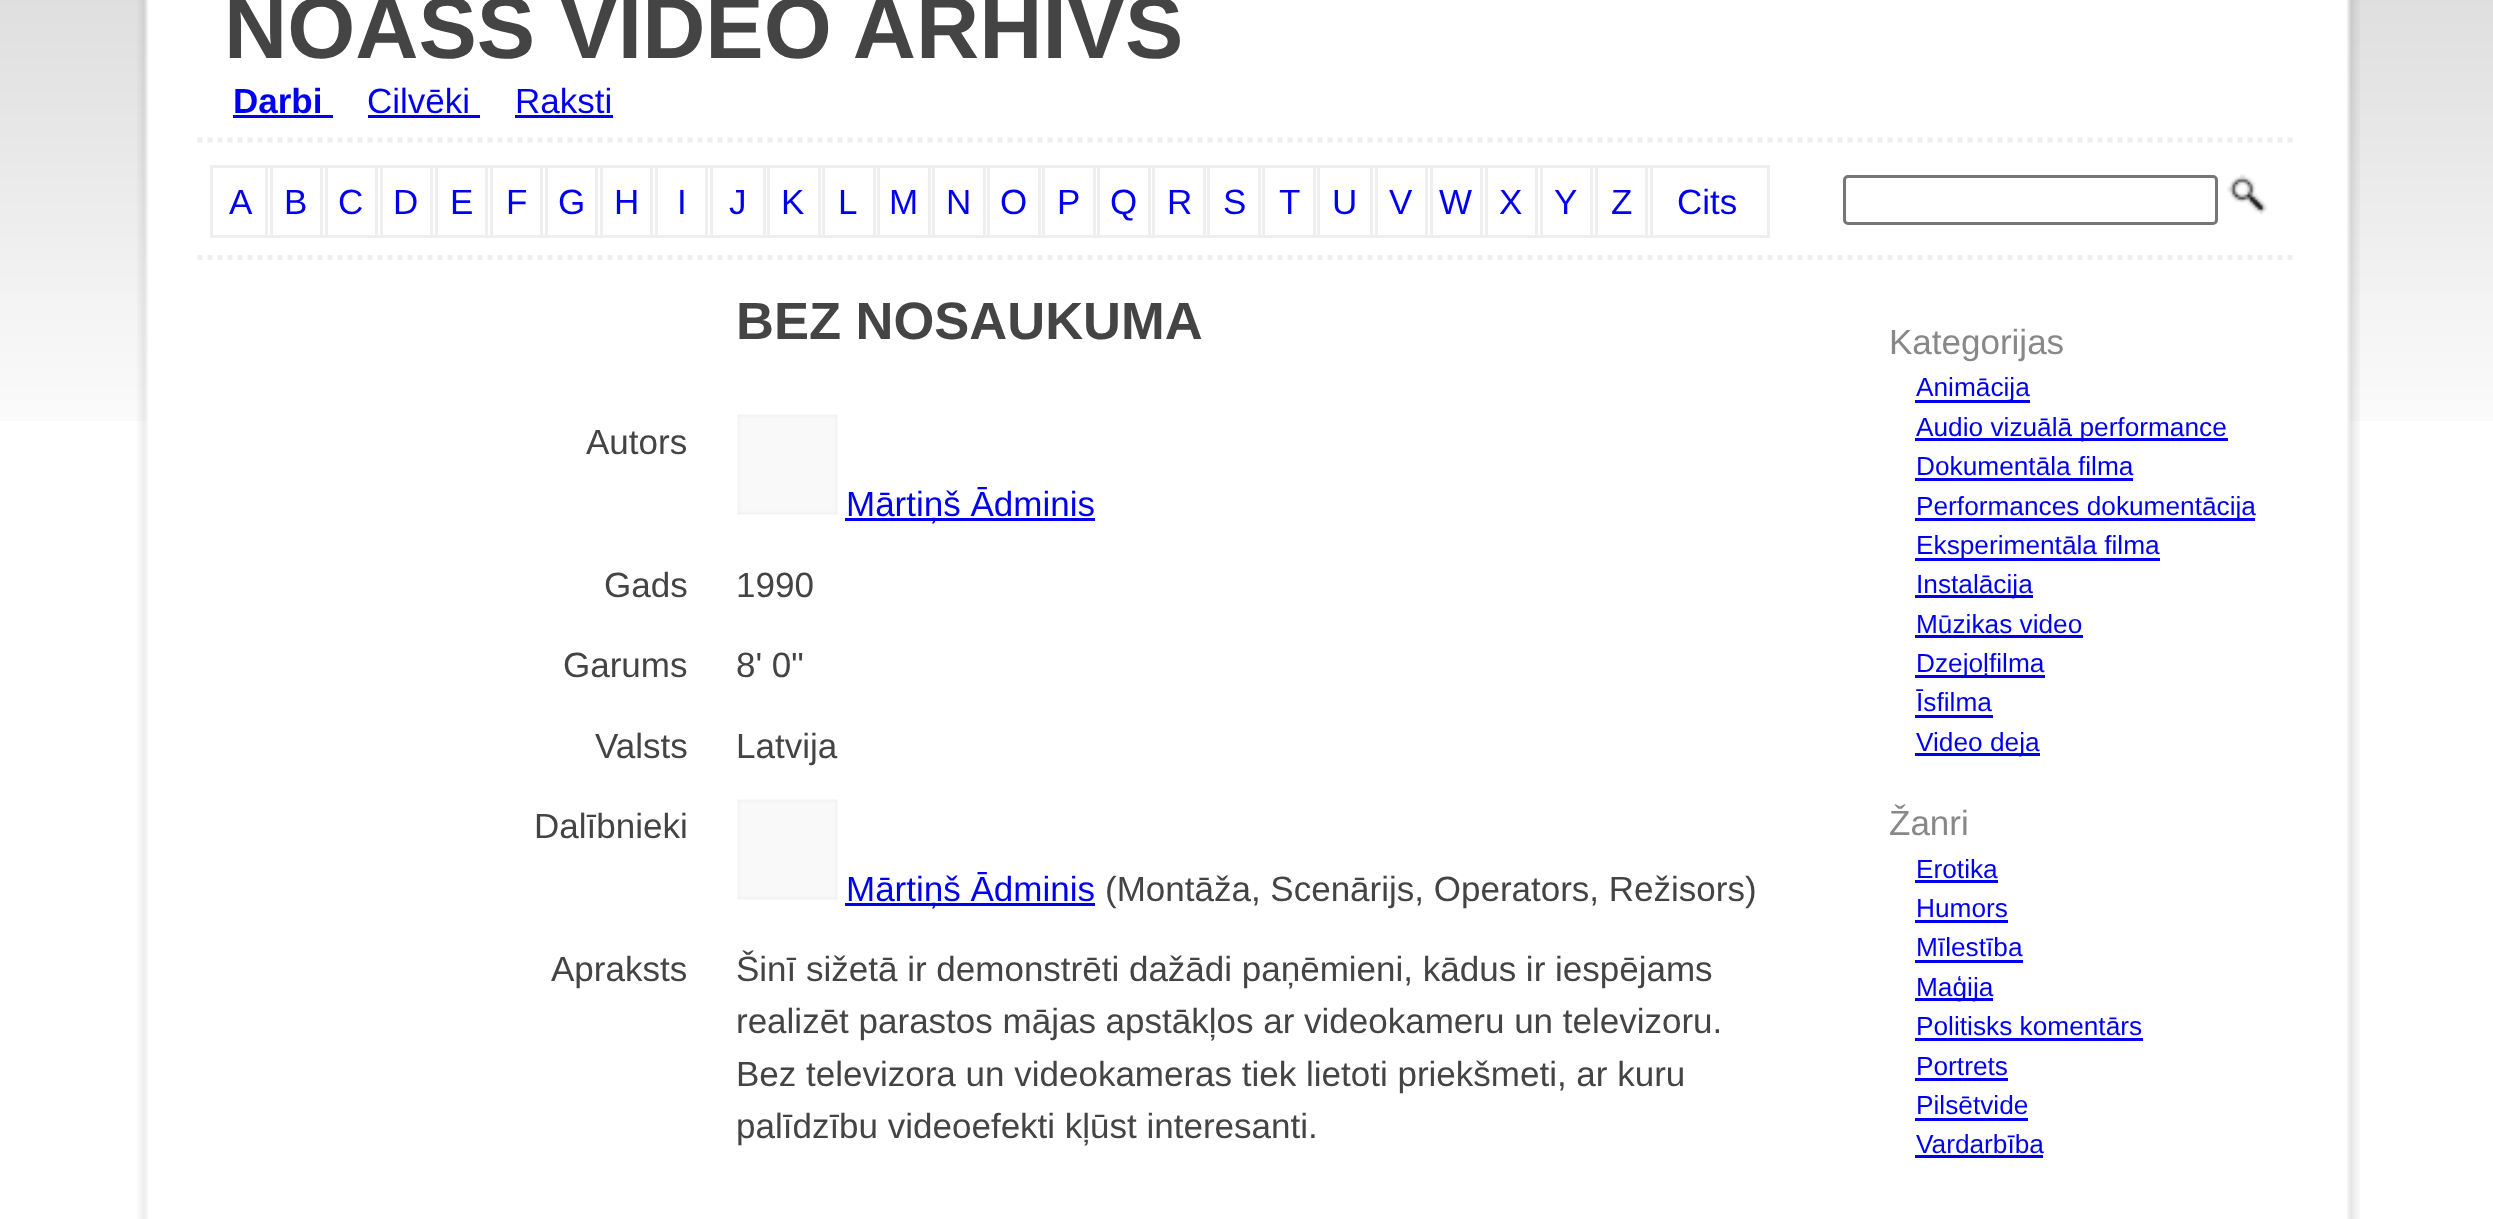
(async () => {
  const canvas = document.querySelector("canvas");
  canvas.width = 2493;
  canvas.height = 1219;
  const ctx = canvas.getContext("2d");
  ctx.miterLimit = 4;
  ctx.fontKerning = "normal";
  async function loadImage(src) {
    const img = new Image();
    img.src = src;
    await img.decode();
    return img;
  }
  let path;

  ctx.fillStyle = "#ffffff";
  ctx.fillRect(0, 0, 2493, 1219);
  ctx.drawImage(await loadImage("img/1.png"), 0, 0, 2493, 421);
  ctx.drawImage(await loadImage("img/2.png"), 137, 0, 2223, 1219);
  path = new Path2D("M197.5 140H2297.5");
  ctx.strokeStyle = "#efefef";
  ctx.lineWidth = 5;
  ctx.setLineDash([5, 5]);
  ctx.stroke(path);
  for (const [x, y, w, h, color] of [
    [233, 115, 100, 3, "#0000ee"],
    [368, 115, 112, 3, "#0000ee"],
    [515, 115, 98, 3, "#0000ee"],
  ]) {
    ctx.fillStyle = color;
    ctx.fillRect(x, y, w, h);
  }
  path = new Path2D("M197.5 257.5H2297.5");
  ctx.stroke(path);
  ctx.lineWidth = 3;
  ctx.setLineDash([]);
  ctx.strokeRect(211.5, 166.5, 60, 70);
  ctx.strokeRect(266.5, 166.5, 60, 70);
  ctx.strokeRect(321.5, 166.5, 60, 70);
  ctx.strokeRect(376.5, 166.5, 60, 70);
  ctx.strokeRect(431.5, 166.5, 60, 70);
  ctx.strokeRect(486.5, 166.5, 60, 70);
  ctx.strokeRect(541.5, 166.5, 60, 70);
  ctx.strokeRect(596.5, 166.5, 60, 70);
  ctx.strokeRect(651.5, 166.5, 60, 70);
  ctx.strokeRect(706.5, 166.5, 62, 70);
  ctx.strokeRect(764.5, 166.5, 59, 70);
  ctx.strokeRect(819.5, 166.5, 59, 70);
  ctx.strokeRect(874.5, 166.5, 59, 70);
  ctx.strokeRect(929.5, 166.5, 59, 70);
  ctx.strokeRect(984.5, 166.5, 59, 70);
  ctx.strokeRect(1039.5, 166.5, 59, 70);
  ctx.strokeRect(1094.5, 166.5, 59, 70);
  ctx.strokeRect(1149.5, 166.5, 59, 70);
  ctx.strokeRect(1204.5, 166.5, 59, 70);
  ctx.strokeRect(1259.5, 166.5, 59, 70);
  ctx.strokeRect(1314.5, 166.5, 62, 70);
  ctx.strokeRect(1371.5, 166.5, 60, 70);
  ctx.strokeRect(1426.5, 166.5, 60, 70);
  ctx.strokeRect(1481.5, 166.5, 60, 70);
  ctx.strokeRect(1536.5, 166.5, 60, 70);
  ctx.strokeRect(1591.5, 166.5, 60, 70);
  ctx.strokeRect(1646.5, 166.5, 122, 70);
  ctx.beginPath();
  ctx.roundRect(1844.5, 176.5, 372, 47, 3.5);
  ctx.strokeStyle = "#767676";
  ctx.stroke();
  ctx.drawImage(await loadImage("img/3.png"), 2227, 174, 41, 41);
  ctx.drawImage(await loadImage("img/4.png"), 737, 414, 101, 101);
  ctx.fillRect(845, 518, 250, 3);
  ctx.drawImage(await loadImage("img/4.png"), 737, 799, 101, 101);
  for (const [x, y, w, h, color] of [
    [845, 903, 250, 3, "#0000ee"],
    [1915, 400, 115, 3, "#0000ee"],
    [1915, 438, 313, 3, "#0000ee"],
    [1915, 478, 218, 3, "#0000ee"],
    [1915, 518, 340, 3, "#0000ee"],
    [1915, 558, 245, 3, "#0000ee"],
    [1915, 595, 118, 3, "#0000ee"],
    [1915, 635, 168, 3, "#0000ee"],
    [1915, 675, 130, 3, "#0000ee"],
    [1915, 715, 78, 3, "#0000ee"],
    [1915, 753, 125, 3, "#0000ee"],
    [1915, 880, 83, 3, "#0000ee"],
    [1915, 920, 93, 3, "#0000ee"],
    [1915, 960, 108, 3, "#0000ee"],
    [1915, 998, 78, 3, "#0000ee"],
    [1915, 1038, 228, 3, "#0000ee"],
    [1915, 1078, 93, 3, "#0000ee"],
    [1915, 1118, 113, 3, "#0000ee"],
    [1915, 1155, 128, 3, "#0000ee"],
  ]) {
    ctx.fillStyle = color;
    ctx.fillRect(x, y, w, h);
  }
  ctx.font = "bold 87.5px Liberation Sans";
  ctx.fillStyle = "#444444";
  ctx.fillText("NOASS VIDEO ARHĪVS", 224, 58);
  ctx.font = "bold 35px Liberation Sans";
  ctx.fillStyle = "#0000ee";
  ctx.fillText("Darbi", 233, 113);
  ctx.font = "35px Liberation Sans";
  for (const [text, x, y] of [
    ["Cilvēki", 367, 113],
    ["Raksti", 515, 113],
    ["A", 229, 214],
    ["B", 284, 214],
    ["C", 338, 214],
    ["D", 393, 214],
    ["E", 450, 214],
    ["F", 506, 214],
    ["G", 558, 214],
    ["H", 614, 214],
    ["I", 677, 214],
    ["J", 729, 214],
    ["K", 781, 214],
    ["L", 838, 214],
    ["M", 889, 214],
    ["N", 946, 214],
    ["O", 1000, 214],
    ["P", 1057, 214],
    ["Q", 1110, 214],
    ["R", 1167, 214],
    ["S", 1223, 214],
    ["T", 1279, 214],
    ["U", 1332, 214],
    ["V", 1389, 214],
    ["W", 1439, 214],
    ["X", 1499, 214],
    ["Y", 1554, 214],
    ["Z", 1611, 214],
    ["Cits", 1677, 214],
  ]) {
    ctx.fillText(text, x, y);
  }
  ctx.font = "bold 52.5px Liberation Sans";
  ctx.fillStyle = "#444444";
  ctx.fillText("BEZ NOSAUKUMA", 736, 339);
  ctx.font = "35px Liberation Sans";
  ctx.fillText("Autors", 586, 454);
  ctx.fillStyle = "#0000ee";
  ctx.fillText("Mārtiņš Ādminis", 846, 516);
  ctx.fillStyle = "#444444";
  for (const [text, x, y] of [
    ["Gads", 604, 597],
    ["1990", 736, 597],
    ["Garums", 563, 677],
    ["8' 0\"", 736, 677],
    ["Valsts", 595, 758],
    ["Latvija", 736, 758],
    ["Dalībnieki", 534, 838],
  ]) {
    ctx.fillText(text, x, y);
  }
  ctx.fillStyle = "#0000ee";
  ctx.fillText("Mārtiņš Ādminis", 846, 901);
  ctx.fillStyle = "#444444";
  for (const [text, x, y] of [
    ["(Montāža, Scenārijs, Operators, Režisors)", 1105, 901],
    ["Apraksts", 551, 981],
    ["Šinī sižetā ir demonstrēti dažādi paņēmieni, kādus ir iespējams", 736, 981],
    ["realizēt parastos mājas apstākļos ar videokameru un televizoru.", 736, 1033],
    ["Bez televizora un videokameras tiek lietoti priekšmeti, ar kuru", 736, 1086],
    ["palīdzību videoefekti kļūst interesanti.", 736, 1138],
  ]) {
    ctx.fillText(text, x, y);
  }
  ctx.fillStyle = "#888888";
  ctx.fillText("Kategorijas", 1889, 354);
  ctx.font = "26.25px Liberation Sans";
  ctx.fillStyle = "#0000ee";
  for (const [text, x, y] of [
    ["Animācija", 1916, 396],
    ["Audio vizuālā performance", 1916, 436],
    ["Dokumentāla filma", 1916, 475],
    ["Performances dokumentācija", 1916, 515],
    ["Eksperimentāla filma", 1916, 554],
    ["Instalācija", 1916, 593],
    ["Mūzikas video", 1916, 633],
    ["Dzejoļfilma", 1916, 672],
    ["Īsfilma", 1916, 711],
    ["Video deja", 1916, 751],
  ]) {
    ctx.fillText(text, x, y);
  }
  ctx.font = "35px Liberation Sans";
  ctx.fillStyle = "#888888";
  ctx.fillText("Žanri", 1889, 835);
  ctx.font = "26.25px Liberation Sans";
  ctx.fillStyle = "#0000ee";
  for (const [text, x, y] of [
    ["Erotika", 1916, 878],
    ["Humors", 1916, 917],
    ["Mīlestība", 1916, 956],
    ["Maģija", 1916, 996],
    ["Politisks komentārs", 1916, 1035],
    ["Portrets", 1916, 1075],
    ["Pilsētvide", 1916, 1114],
    ["Vardarbība", 1916, 1153],
  ]) {
    ctx.fillText(text, x, y);
  }
})();
